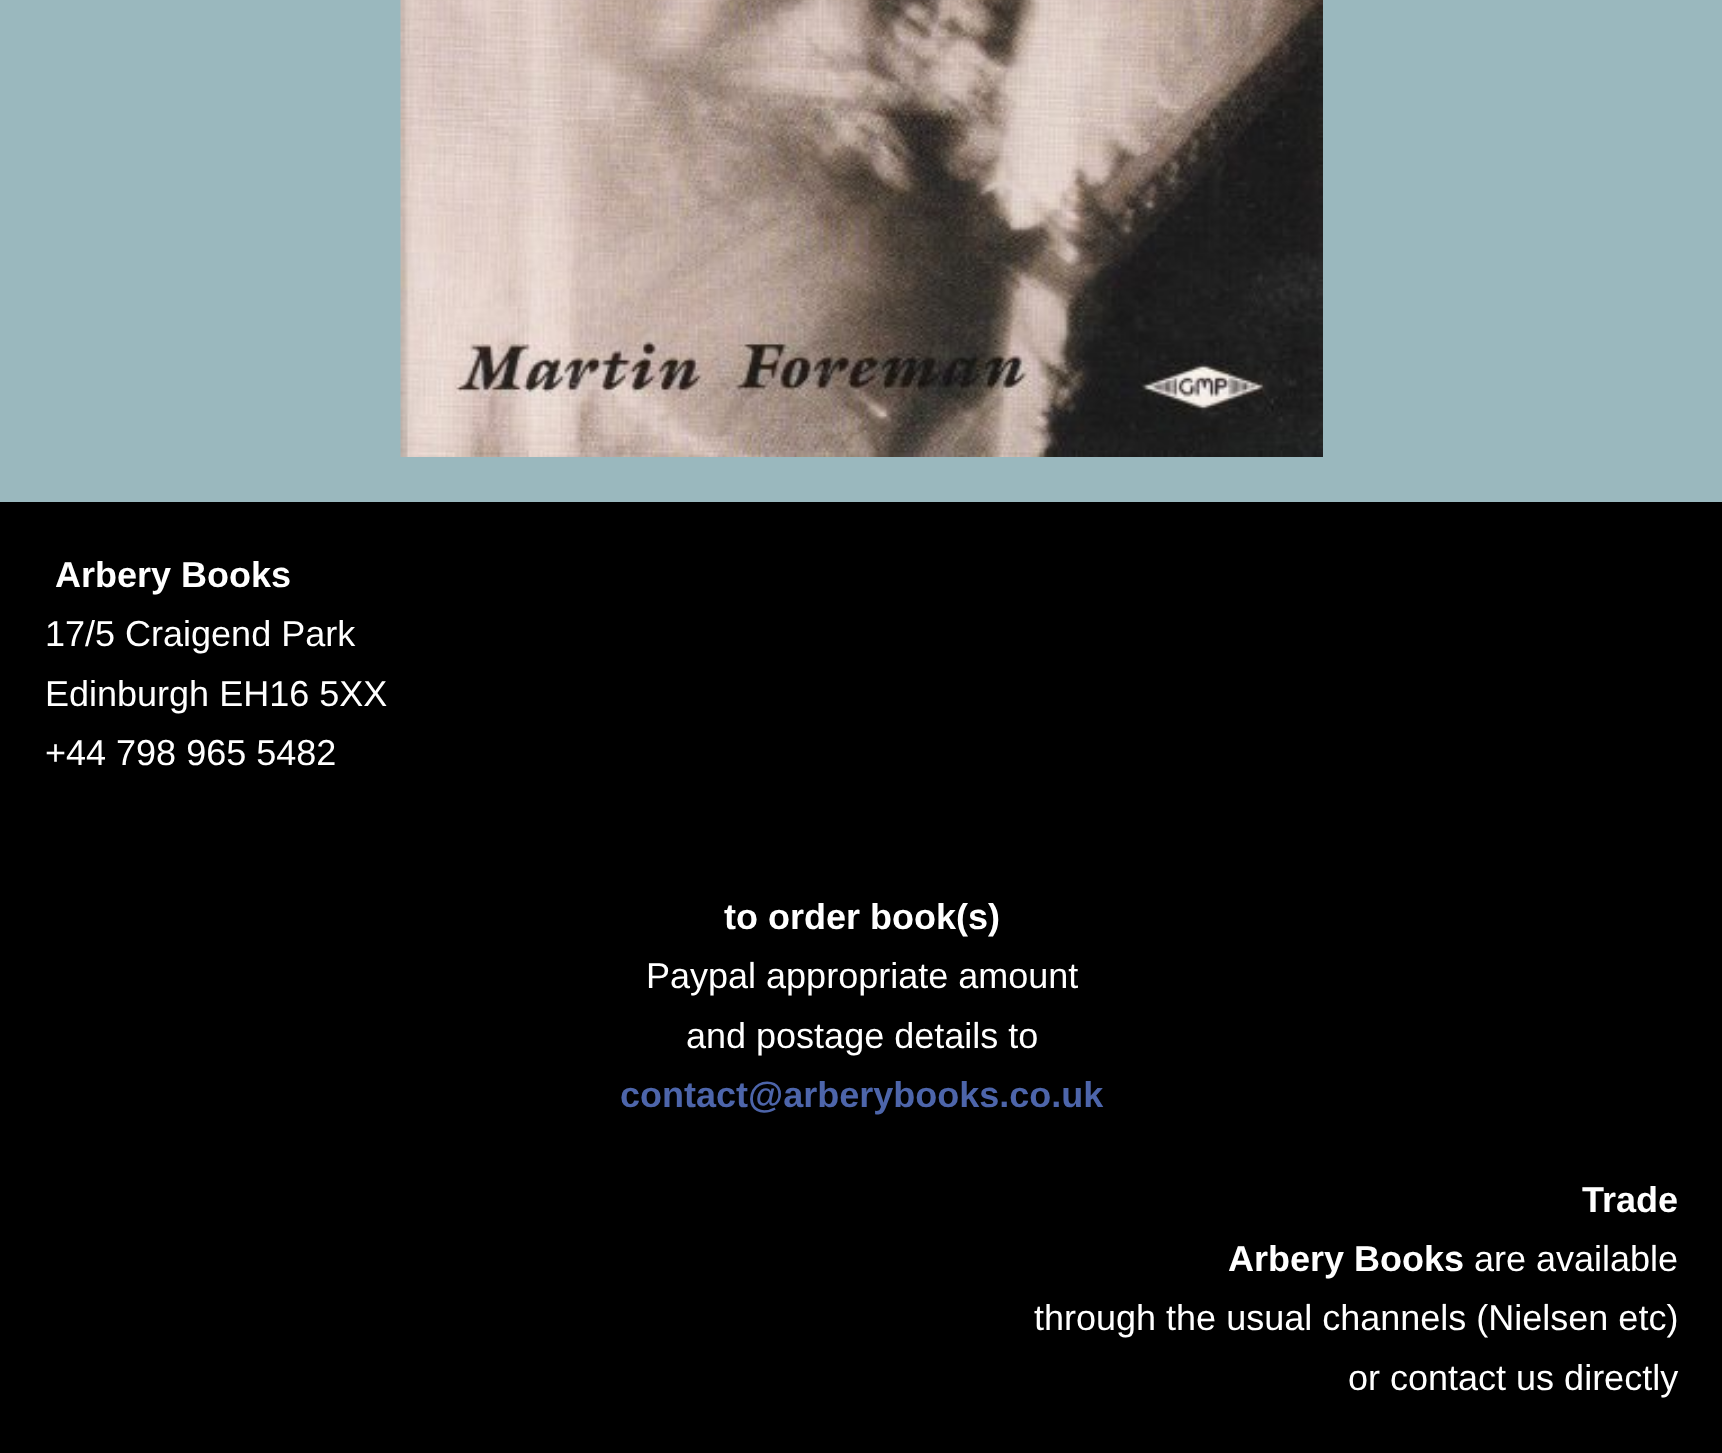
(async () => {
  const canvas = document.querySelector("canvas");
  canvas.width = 1722;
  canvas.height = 1453;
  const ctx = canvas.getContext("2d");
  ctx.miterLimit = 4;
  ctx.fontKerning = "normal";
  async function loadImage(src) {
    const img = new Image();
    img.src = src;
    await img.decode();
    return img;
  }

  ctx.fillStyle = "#9ab8be";
  ctx.fillRect(0, 0, 1722, 1453);
  ctx.drawImage(await loadImage("img/1.png"), 400, 0, 923, 457);
  ctx.fillStyle = "#000000";
  ctx.fillRect(0, 502, 1722, 951);
  ctx.font = "bold 36px Liberation Sans";
  ctx.fillStyle = "#ffffff";
  ctx.fillText("Arbery Books", 55, 587);
  ctx.font = "36px Liberation Sans";
  for (const [text, x, y] of [
    ["17/5 Craigend Park", 45, 646],
    ["Edinburgh EH16 5XX", 45, 706],
    ["+44 798 965 5482", 45, 765],
  ]) {
    ctx.fillText(text, x, y);
  }
  ctx.font = "bold 36px Liberation Sans";
  ctx.fillText("to order book(s)", 724, 929);
  ctx.font = "36px Liberation Sans";
  ctx.fillText("Paypal appropriate amount", 646, 988);
  ctx.fillText("and postage details to", 686, 1048);
  ctx.font = "bold 36px Liberation Sans";
  ctx.fillStyle = "#4d65aa";
  ctx.fillText("contact@arberybooks.co.uk", 620, 1107);
  ctx.fillStyle = "#ffffff";
  ctx.fillText("Trade", 1582, 1212);
  ctx.fillText("Arbery Books", 1228, 1271);
  ctx.font = "36px Liberation Sans";
  for (const [text, x, y] of [
    ["are available", 1474, 1271],
    ["through the usual channels (Nielsen etc)", 1034, 1330],
    ["or contact us directly", 1348, 1390],
  ]) {
    ctx.fillText(text, x, y);
  }
})();
